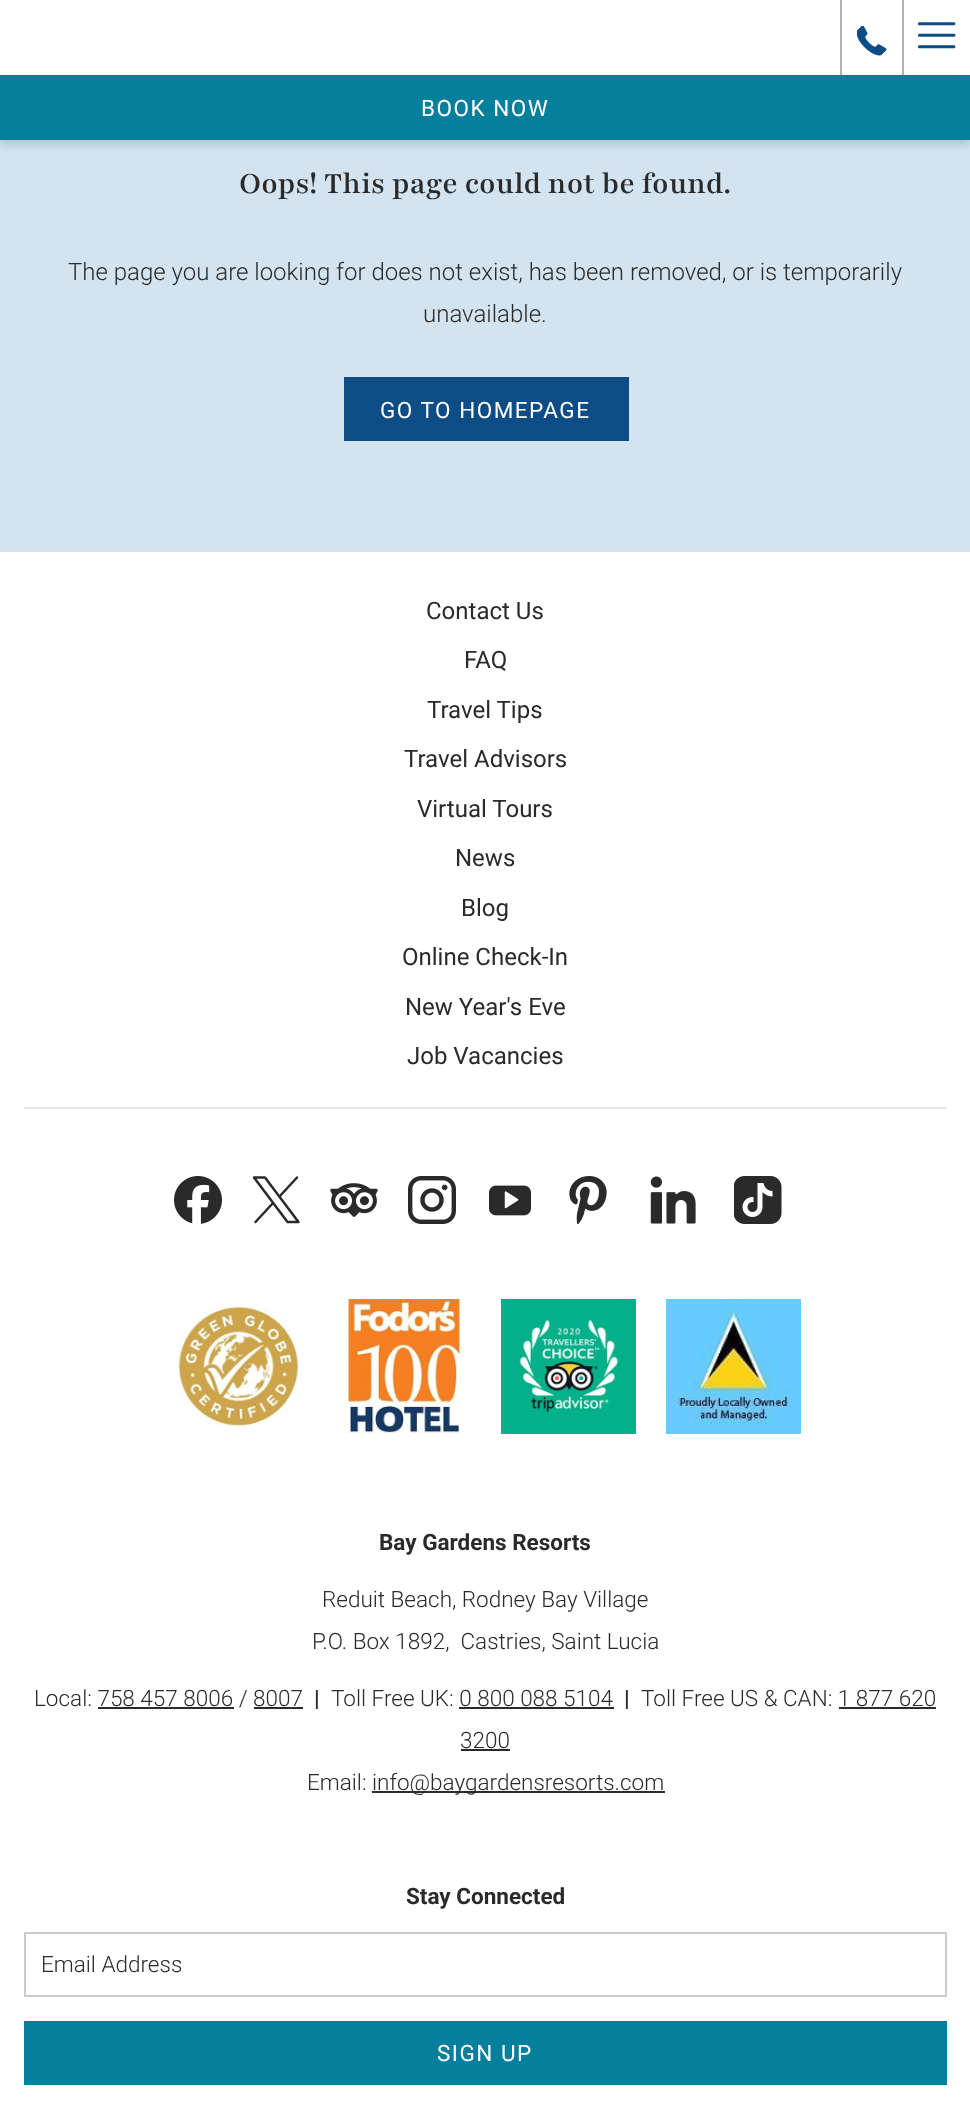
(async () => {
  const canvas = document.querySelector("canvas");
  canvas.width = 970;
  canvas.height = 2123;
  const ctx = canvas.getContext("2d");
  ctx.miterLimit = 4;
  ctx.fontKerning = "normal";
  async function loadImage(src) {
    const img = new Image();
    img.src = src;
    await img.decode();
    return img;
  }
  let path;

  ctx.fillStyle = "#ffffff";
  ctx.fillRect(0, 0, 970, 2123);
  ctx.fillStyle = "#b3b3b3";
  ctx.fillRect(840, 0, 2, 75);
  ctx.drawImage(await loadImage("img/1.png"), 857, 26, 30, 30);
  ctx.fillStyle = "#d3e3ef";
  ctx.fillRect(0, 140, 970, 412);
  ctx.fillStyle = "rgba(0, 0, 0, 0.15)";
  ctx.filter = "blur(4.5px)";
  ctx.beginPath();
  ctx.rect(0, 80, 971, 64);
  ctx.fill();
  ctx.filter = "none";
  ctx.fillStyle = "#b3b3b3";
  ctx.fillRect(902, 0, 2, 75);
  ctx.drawImage(await loadImage("img/2.png"), 918, 22, 38, 27);
  for (const [x, y, w, h, color] of [
    [0, 75, 970, 65, "#067f9d"],
    [344, 377, 285, 64, "#0d4c85"],
    [24, 1107, 923, 2, "#e6e6e6"],
  ]) {
    ctx.fillStyle = color;
    ctx.fillRect(x, y, w, h);
  }
  ctx.drawImage(await loadImage("img/3.png"), 174, 1176, 48, 48);
  path = new Path2D("M287.5 1222L254 1177.5H265L298.5 1222ZM297 1177.5L279.5 1196.5M255.5 1222L273 1203");
  ctx.strokeStyle = "#2a2a2a";
  ctx.lineWidth = 2.5;
  ctx.lineCap = "round";
  ctx.lineJoin = "round";
  ctx.stroke(path);
  ctx.drawImage(await loadImage("img/4.png"), 330, 1183, 48, 34);
  ctx.drawImage(await loadImage("img/5.png"), 408, 1176, 48, 48);
  ctx.drawImage(await loadImage("img/6.png"), 489, 1185, 42, 31);
  ctx.drawImage(await loadImage("img/7.png"), 569, 1176, 38, 48);
  ctx.drawImage(await loadImage("img/8.png"), 650, 1176, 46, 48);
  ctx.drawImage(await loadImage("img/9.png"), 734, 1176, 48, 48);
  ctx.drawImage(await loadImage("img/10.png"), 178, 1306, 122, 120);
  ctx.drawImage(await loadImage("img/11.png"), 343, 1299, 120, 135);
  ctx.drawImage(await loadImage("img/12.png"), 501, 1299, 135, 135);
  ctx.drawImage(await loadImage("img/13.png"), 666, 1299, 135, 135);
  for (const [x, y, w, h, color] of [
    [98, 1707, 136, 2, "#2a2a2a"],
    [254, 1707, 49, 2, "#2a2a2a"],
    [459, 1707, 155, 2, "#2a2a2a"],
    [839, 1707, 97, 2, "#2a2a2a"],
    [461, 1749, 49, 2, "#2a2a2a"],
    [372, 1791, 293, 2, "#2a2a2a"],
  ]) {
    ctx.fillStyle = color;
    ctx.fillRect(x, y, w, h);
  }
  ctx.strokeStyle = "#cccccc";
  ctx.lineWidth = 2;
  ctx.lineJoin = "miter";
  ctx.strokeRect(25, 1933, 921, 63);
  ctx.fillStyle = "#067f9d";
  ctx.fillRect(24, 2021, 923, 64);
  ctx.letterSpacing = "1.5px";
  ctx.font = "22.5px Roboto";
  ctx.fillStyle = "#ffffff";
  ctx.fillText("BOOK NOW", 421, 116);
  ctx.letterSpacing = "0px";
  ctx.font = "600 33px 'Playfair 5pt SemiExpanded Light'";
  ctx.fillStyle = "#2a2a2a";
  ctx.fillText("Oops! This page could not be found.", 239, 193);
  ctx.font = "300 24px Roboto";
  ctx.fillText("The page you are looking for does not exist, has been removed, or is temporarily", 68, 280);
  ctx.fillText("unavailable.", 423, 322);
  ctx.letterSpacing = "1.5px";
  ctx.font = "22.5px Roboto";
  ctx.fillStyle = "#ffffff";
  ctx.fillText("GO TO HOMEPAGE", 380, 418);
  ctx.letterSpacing = "0px";
  ctx.font = "24px Roboto";
  ctx.fillStyle = "#2a2a2a";
  for (const [text, x, y] of [
    ["Contact Us", 426, 619],
    ["FAQ", 464, 668],
    ["Travel Tips", 427, 718],
    ["Travel Advisors", 404, 767],
    ["Virtual Tours", 417, 817],
    ["News", 455, 866],
    ["Blog", 461, 916],
    ["Online Check-In", 402, 965],
    ["New Year's Eve", 405, 1015],
    ["Job Vacancies", 407, 1064],
  ]) {
    ctx.fillText(text, x, y);
  }
  ctx.font = "bold 22.5px Roboto";
  ctx.fillText("Bay Gardens Resorts", 379, 1550);
  ctx.font = "300 22.5px Roboto";
  for (const [text, x, y] of [
    ["Reduit Beach, Rodney Bay Village", 322, 1607],
    ["P.O. Box 1892,  Castries, Saint Lucia", 312, 1649],
    ["Local: 758 457 8006 / 8007", 34, 1706],
  ]) {
    ctx.fillText(text, x, y);
  }
  ctx.font = "bold 22.5px Roboto";
  ctx.fillText("|", 314, 1706);
  ctx.font = "300 22.5px Roboto";
  ctx.fillText("Toll Free UK: 0 800 088 5104", 331, 1706);
  ctx.font = "bold 22.5px Roboto";
  ctx.fillText("|", 624, 1706);
  ctx.font = "300 22.5px Roboto";
  for (const [text, x, y] of [
    ["Toll Free US & CAN: 1 877 620", 641, 1706],
    ["3200", 460, 1748],
    ["Email:", 307, 1790],
    ["info@baygardensresorts.com", 372, 1790],
  ]) {
    ctx.fillText(text, x, y);
  }
  ctx.font = "bold 22.5px Roboto";
  ctx.fillText("Stay Connected", 406, 1904);
  ctx.font = "300 22.5px Roboto";
  ctx.fillText("Email Address", 41, 1972);
  ctx.letterSpacing = "1.5px";
  ctx.font = "22.5px Roboto";
  ctx.fillStyle = "#ffffff";
  ctx.fillText("SIGN UP", 437, 2061);
})();
